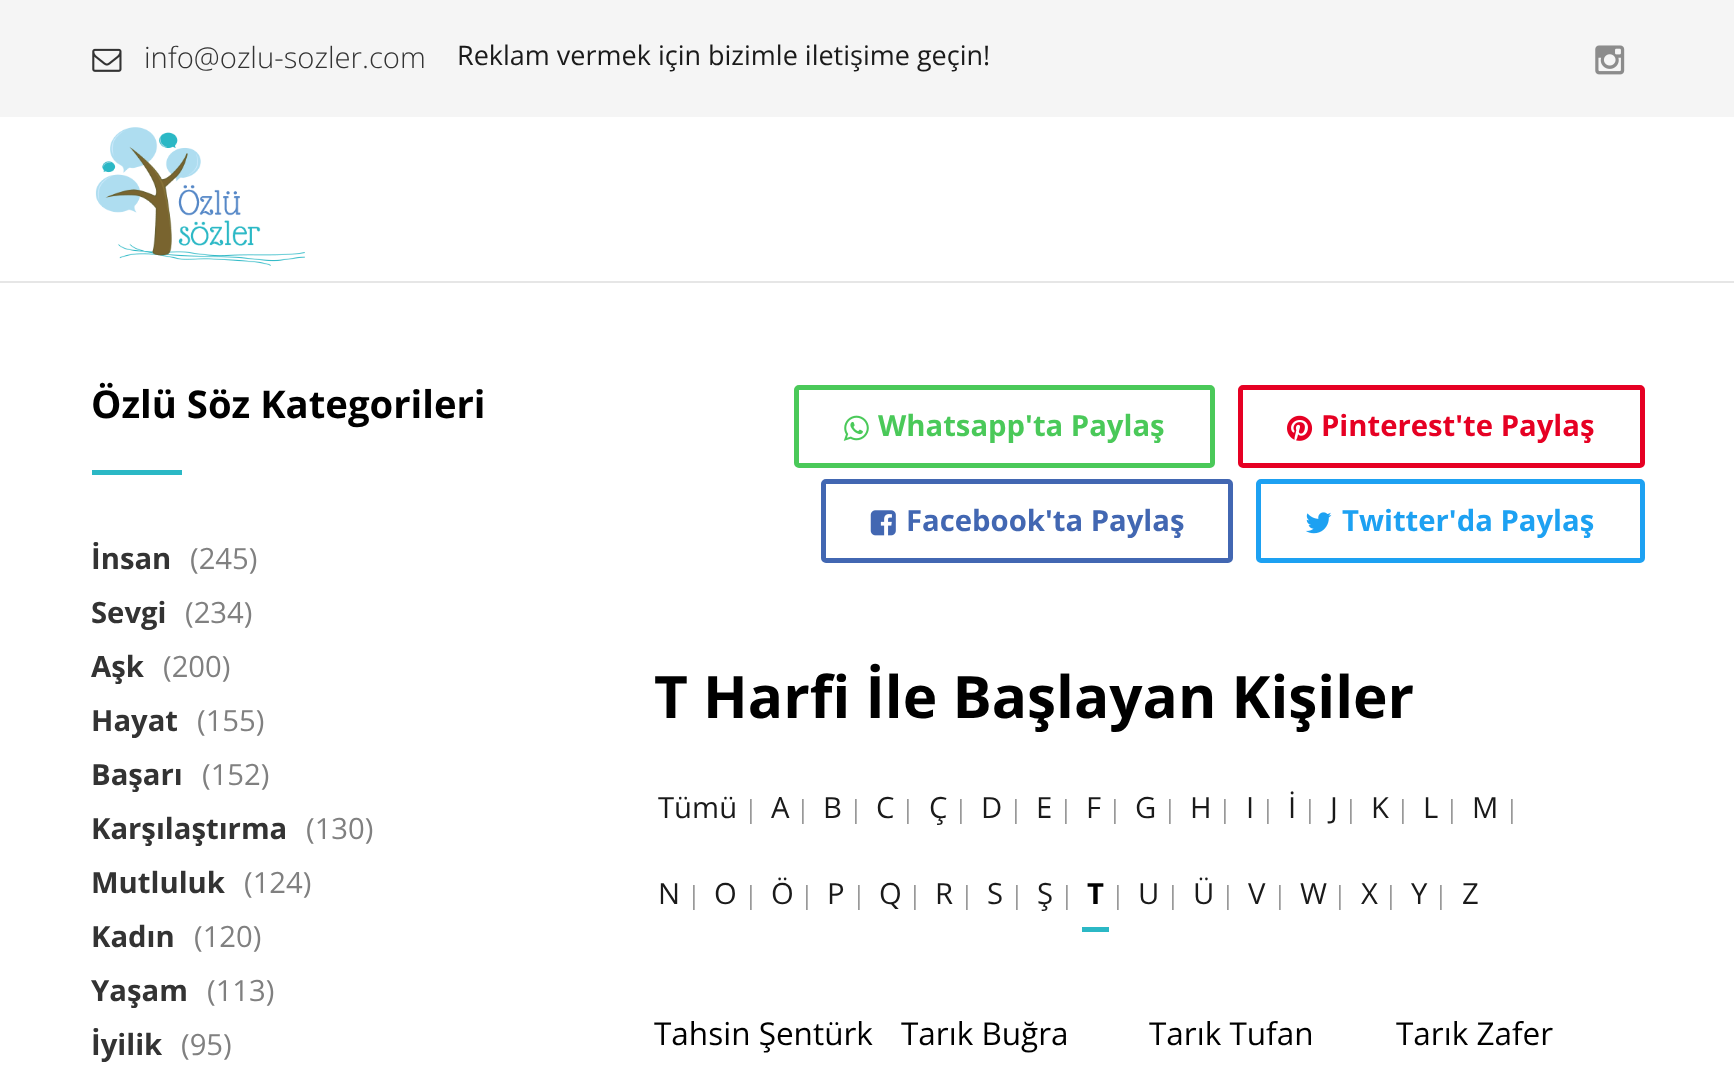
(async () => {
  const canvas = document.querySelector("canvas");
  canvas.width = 1734;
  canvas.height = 1092;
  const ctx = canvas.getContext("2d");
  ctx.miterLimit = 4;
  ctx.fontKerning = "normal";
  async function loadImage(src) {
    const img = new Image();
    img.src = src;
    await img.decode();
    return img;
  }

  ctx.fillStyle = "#ffffff";
  ctx.fillRect(0, 0, 1734, 1092);
  ctx.fillStyle = "#e6e6e6";
  ctx.fillRect(0, 281, 1734, 2);
  ctx.fillStyle = "#f5f5f5";
  ctx.fillRect(0, 0, 1734, 117);
  ctx.drawImage(await loadImage("img/1.png"), 92, 48, 30, 24);
  ctx.drawImage(await loadImage("img/2.png"), 1595, 45, 30, 30);
  ctx.drawImage(await loadImage("img/3.png"), 95, 127, 210, 139);
  ctx.fillStyle = "#2bb8c5";
  ctx.fillRect(92, 470, 90, 5);
  ctx.beginPath();
  ctx.roundRect(796.5, 387.5, 416, 78, 2.5);
  ctx.strokeStyle = "#4ac959";
  ctx.lineWidth = 5;
  ctx.stroke();
  ctx.drawImage(await loadImage("img/4.png"), 843, 415, 26, 26);
  ctx.beginPath();
  ctx.roundRect(1240.5, 387.5, 402, 78, 2.5);
  ctx.strokeStyle = "#e60023";
  ctx.stroke();
  ctx.drawImage(await loadImage("img/5.png"), 1287, 415, 26, 26);
  ctx.beginPath();
  ctx.roundRect(823.5, 481.5, 407, 79, 2.5);
  ctx.strokeStyle = "#4267b2";
  ctx.stroke();
  ctx.drawImage(await loadImage("img/6.png"), 870, 510, 26, 26);
  ctx.beginPath();
  ctx.roundRect(1258.5, 481.5, 384, 79, 2.5);
  ctx.strokeStyle = "#1da1f2";
  ctx.stroke();
  ctx.drawImage(await loadImage("img/7.png"), 1305, 512, 27, 22);
  ctx.fillRect(1082, 927, 27, 5);
  ctx.font = "300 29.25px Open Sans";
  ctx.fillStyle = "#333333";
  ctx.fillText("info@ozlu-sozler.com", 144, 68);
  ctx.font = "27px Open Sans";
  ctx.fillStyle = "#1a1a1a";
  ctx.fillText("Reklam vermek için bizimle iletişime geçin!", 457, 65);
  ctx.font = "bold 38.25px Open Sans";
  ctx.fillStyle = "#000000";
  ctx.fillText("Özlü Söz Kategorileri", 91, 418);
  ctx.font = "bold 29.25px Open Sans";
  ctx.fillStyle = "#333333";
  ctx.fillText("İnsan", 91, 569);
  ctx.font = "29.25px Open Sans";
  ctx.fillStyle = "#808080";
  ctx.fillText("(245)", 190, 569);
  ctx.font = "bold 29.25px Open Sans";
  ctx.fillStyle = "#333333";
  ctx.fillText("Sevgi", 91, 623);
  ctx.font = "29.25px Open Sans";
  ctx.fillStyle = "#808080";
  ctx.fillText("(234)", 185, 623);
  ctx.font = "bold 29.25px Open Sans";
  ctx.fillStyle = "#333333";
  ctx.fillText("Aşk", 91, 677);
  ctx.font = "29.25px Open Sans";
  ctx.fillStyle = "#808080";
  ctx.fillText("(200)", 163, 677);
  ctx.font = "bold 29.25px Open Sans";
  ctx.fillStyle = "#333333";
  ctx.fillText("Hayat", 91, 731);
  ctx.font = "29.25px Open Sans";
  ctx.fillStyle = "#808080";
  ctx.fillText("(155)", 197, 731);
  ctx.font = "bold 29.25px Open Sans";
  ctx.fillStyle = "#333333";
  ctx.fillText("Başarı", 91, 785);
  ctx.font = "29.25px Open Sans";
  ctx.fillStyle = "#808080";
  ctx.fillText("(152)", 202, 785);
  ctx.font = "bold 29.25px Open Sans";
  ctx.fillStyle = "#333333";
  ctx.fillText("Karşılaştırma", 91, 839);
  ctx.font = "29.25px Open Sans";
  ctx.fillStyle = "#808080";
  ctx.fillText("(130)", 306, 839);
  ctx.font = "bold 29.25px Open Sans";
  ctx.fillStyle = "#333333";
  ctx.fillText("Mutluluk", 91, 893);
  ctx.font = "29.25px Open Sans";
  ctx.fillStyle = "#808080";
  ctx.fillText("(124)", 244, 893);
  ctx.font = "bold 29.25px Open Sans";
  ctx.fillStyle = "#333333";
  ctx.fillText("Kadın", 91, 947);
  ctx.font = "29.25px Open Sans";
  ctx.fillStyle = "#808080";
  ctx.fillText("(120)", 194, 947);
  ctx.font = "bold 29.25px Open Sans";
  ctx.fillStyle = "#333333";
  ctx.fillText("Yaşam", 91, 1001);
  ctx.font = "29.25px Open Sans";
  ctx.fillStyle = "#808080";
  ctx.fillText("(113)", 207, 1001);
  ctx.font = "bold 29.25px Open Sans";
  ctx.fillStyle = "#333333";
  ctx.fillText("İyilik", 91, 1055);
  ctx.font = "29.25px Open Sans";
  ctx.fillStyle = "#808080";
  ctx.fillText("(95)", 181, 1055);
  ctx.font = "bold 29.25px Open Sans";
  ctx.fillStyle = "#4ac959";
  ctx.fillText("Whatsapp'ta Paylaş", 878, 436);
  ctx.fillStyle = "#e60023";
  ctx.fillText("Pinterest'te Paylaş", 1321, 436);
  ctx.fillStyle = "#4267b2";
  ctx.fillText("Facebook'ta Paylaş", 906, 531);
  ctx.fillStyle = "#1da1f2";
  ctx.fillText("Twitter'da Paylaş", 1342, 531);
  ctx.font = "bold 58.5px Open Sans";
  ctx.fillStyle = "#000000";
  ctx.fillText("T Harfi İle Başlayan Kişiler", 654, 718);
  ctx.font = "29.25px Open Sans";
  ctx.fillStyle = "#1a1a1a";
  ctx.fillText("Tümü", 658, 818);
  ctx.font = "25px Open Sans";
  ctx.fillStyle = "#999999";
  ctx.fillText("|", 744, 818);
  ctx.font = "29.25px Open Sans";
  ctx.fillStyle = "#1a1a1a";
  ctx.fillText("A", 771, 818);
  ctx.font = "25px Open Sans";
  ctx.fillStyle = "#999999";
  ctx.fillText("|", 796, 818);
  ctx.font = "29.25px Open Sans";
  ctx.fillStyle = "#1a1a1a";
  ctx.fillText("B", 823, 818);
  ctx.font = "25px Open Sans";
  ctx.fillStyle = "#999999";
  ctx.fillText("|", 849, 818);
  ctx.font = "29.25px Open Sans";
  ctx.fillStyle = "#1a1a1a";
  ctx.fillText("C", 876, 818);
  ctx.font = "25px Open Sans";
  ctx.fillStyle = "#999999";
  ctx.fillText("|", 901, 818);
  ctx.font = "29.25px Open Sans";
  ctx.fillStyle = "#1a1a1a";
  ctx.fillText("Ç", 929, 818);
  ctx.font = "25px Open Sans";
  ctx.fillStyle = "#999999";
  ctx.fillText("|", 954, 818);
  ctx.font = "29.25px Open Sans";
  ctx.fillStyle = "#1a1a1a";
  ctx.fillText("D", 981, 818);
  ctx.font = "25px Open Sans";
  ctx.fillStyle = "#999999";
  ctx.fillText("|", 1009, 818);
  ctx.font = "29.25px Open Sans";
  ctx.fillStyle = "#1a1a1a";
  ctx.fillText("E", 1036, 818);
  ctx.font = "25px Open Sans";
  ctx.fillStyle = "#999999";
  ctx.fillText("|", 1059, 818);
  ctx.font = "29.25px Open Sans";
  ctx.fillStyle = "#1a1a1a";
  ctx.fillText("F", 1086, 818);
  ctx.font = "25px Open Sans";
  ctx.fillStyle = "#999999";
  ctx.fillText("|", 1108, 818);
  ctx.font = "29.25px Open Sans";
  ctx.fillStyle = "#1a1a1a";
  ctx.fillText("G", 1135, 818);
  ctx.font = "25px Open Sans";
  ctx.fillStyle = "#999999";
  ctx.fillText("|", 1163, 818);
  ctx.font = "29.25px Open Sans";
  ctx.fillStyle = "#1a1a1a";
  ctx.fillText("H", 1190, 818);
  ctx.font = "25px Open Sans";
  ctx.fillStyle = "#999999";
  ctx.fillText("|", 1218, 818);
  ctx.font = "29.25px Open Sans";
  ctx.fillStyle = "#1a1a1a";
  ctx.fillText("I", 1246, 818);
  ctx.font = "25px Open Sans";
  ctx.fillStyle = "#999999";
  ctx.fillText("|", 1261, 818);
  ctx.font = "29.25px Open Sans";
  ctx.fillStyle = "#1a1a1a";
  ctx.fillText("İ", 1288, 818);
  ctx.font = "25px Open Sans";
  ctx.fillStyle = "#999999";
  ctx.fillText("|", 1303, 818);
  ctx.font = "29.25px Open Sans";
  ctx.fillStyle = "#1a1a1a";
  ctx.fillText("J", 1330, 818);
  ctx.font = "25px Open Sans";
  ctx.fillStyle = "#999999";
  ctx.fillText("|", 1344, 818);
  ctx.font = "29.25px Open Sans";
  ctx.fillStyle = "#1a1a1a";
  ctx.fillText("K", 1371, 818);
  ctx.font = "25px Open Sans";
  ctx.fillStyle = "#999999";
  ctx.fillText("|", 1396, 818);
  ctx.font = "29.25px Open Sans";
  ctx.fillStyle = "#1a1a1a";
  ctx.fillText("L", 1423, 818);
  ctx.font = "25px Open Sans";
  ctx.fillStyle = "#999999";
  ctx.fillText("|", 1445, 818);
  ctx.font = "29.25px Open Sans";
  ctx.fillStyle = "#1a1a1a";
  ctx.fillText("M", 1472, 818);
  ctx.font = "25px Open Sans";
  ctx.fillStyle = "#999999";
  ctx.fillText("|", 1505, 818);
  ctx.font = "29.25px Open Sans";
  ctx.fillStyle = "#1a1a1a";
  ctx.fillText("N", 658, 904);
  ctx.font = "25px Open Sans";
  ctx.fillStyle = "#999999";
  ctx.fillText("|", 687, 904);
  ctx.font = "29.25px Open Sans";
  ctx.fillStyle = "#1a1a1a";
  ctx.fillText("O", 714, 904);
  ctx.font = "25px Open Sans";
  ctx.fillStyle = "#999999";
  ctx.fillText("|", 744, 904);
  ctx.font = "29.25px Open Sans";
  ctx.fillStyle = "#1a1a1a";
  ctx.fillText("Ö", 771, 904);
  ctx.font = "25px Open Sans";
  ctx.fillStyle = "#999999";
  ctx.fillText("|", 800, 904);
  ctx.font = "29.25px Open Sans";
  ctx.fillStyle = "#1a1a1a";
  ctx.fillText("P", 827, 904);
  ctx.font = "25px Open Sans";
  ctx.fillStyle = "#999999";
  ctx.fillText("|", 852, 904);
  ctx.font = "29.25px Open Sans";
  ctx.fillStyle = "#1a1a1a";
  ctx.fillText("Q", 879, 904);
  ctx.font = "25px Open Sans";
  ctx.fillStyle = "#999999";
  ctx.fillText("|", 908, 904);
  ctx.font = "29.25px Open Sans";
  ctx.fillStyle = "#1a1a1a";
  ctx.fillText("R", 935, 904);
  ctx.font = "25px Open Sans";
  ctx.fillStyle = "#999999";
  ctx.fillText("|", 960, 904);
  ctx.font = "29.25px Open Sans";
  ctx.fillStyle = "#1a1a1a";
  ctx.fillText("S", 987, 904);
  ctx.font = "25px Open Sans";
  ctx.fillStyle = "#999999";
  ctx.fillText("|", 1010, 904);
  ctx.font = "29.25px Open Sans";
  ctx.fillStyle = "#1a1a1a";
  ctx.fillText("Ş", 1037, 904);
  ctx.font = "25px Open Sans";
  ctx.fillStyle = "#999999";
  ctx.fillText("|", 1060, 904);
  ctx.font = "bold 29.25px Open Sans";
  ctx.fillStyle = "#000000";
  ctx.fillText("T", 1087, 904);
  ctx.font = "25px Open Sans";
  ctx.fillStyle = "#999999";
  ctx.fillText("|", 1111, 904);
  ctx.font = "29.25px Open Sans";
  ctx.fillStyle = "#1a1a1a";
  ctx.fillText("U", 1138, 904);
  ctx.font = "25px Open Sans";
  ctx.fillStyle = "#999999";
  ctx.fillText("|", 1166, 904);
  ctx.font = "29.25px Open Sans";
  ctx.fillStyle = "#1a1a1a";
  ctx.fillText("Ü", 1193, 904);
  ctx.font = "25px Open Sans";
  ctx.fillStyle = "#999999";
  ctx.fillText("|", 1221, 904);
  ctx.font = "29.25px Open Sans";
  ctx.fillStyle = "#1a1a1a";
  ctx.fillText("V", 1248, 904);
  ctx.font = "25px Open Sans";
  ctx.fillStyle = "#999999";
  ctx.fillText("|", 1273, 904);
  ctx.font = "29.25px Open Sans";
  ctx.fillStyle = "#1a1a1a";
  ctx.fillText("W", 1300, 904);
  ctx.font = "25px Open Sans";
  ctx.fillStyle = "#999999";
  ctx.fillText("|", 1333, 904);
  ctx.font = "29.25px Open Sans";
  ctx.fillStyle = "#1a1a1a";
  ctx.fillText("X", 1361, 904);
  ctx.font = "25px Open Sans";
  ctx.fillStyle = "#999999";
  ctx.fillText("|", 1384, 904);
  ctx.font = "29.25px Open Sans";
  ctx.fillStyle = "#1a1a1a";
  ctx.fillText("Y", 1411, 904);
  ctx.font = "25px Open Sans";
  ctx.fillStyle = "#999999";
  ctx.fillText("|", 1434, 904);
  ctx.font = "29.25px Open Sans";
  ctx.fillStyle = "#1a1a1a";
  ctx.fillText("Z", 1462, 904);
  ctx.font = "31.5px Open Sans";
  ctx.fillStyle = "#000000";
  for (const [text, x, y] of [
    ["Tahsin Şentürk", 654, 1045],
    ["Tarık Buğra", 901, 1045],
    ["Tarık Tufan", 1149, 1045],
    ["Tarık Zafer", 1396, 1045],
  ]) {
    ctx.fillText(text, x, y);
  }
})();
